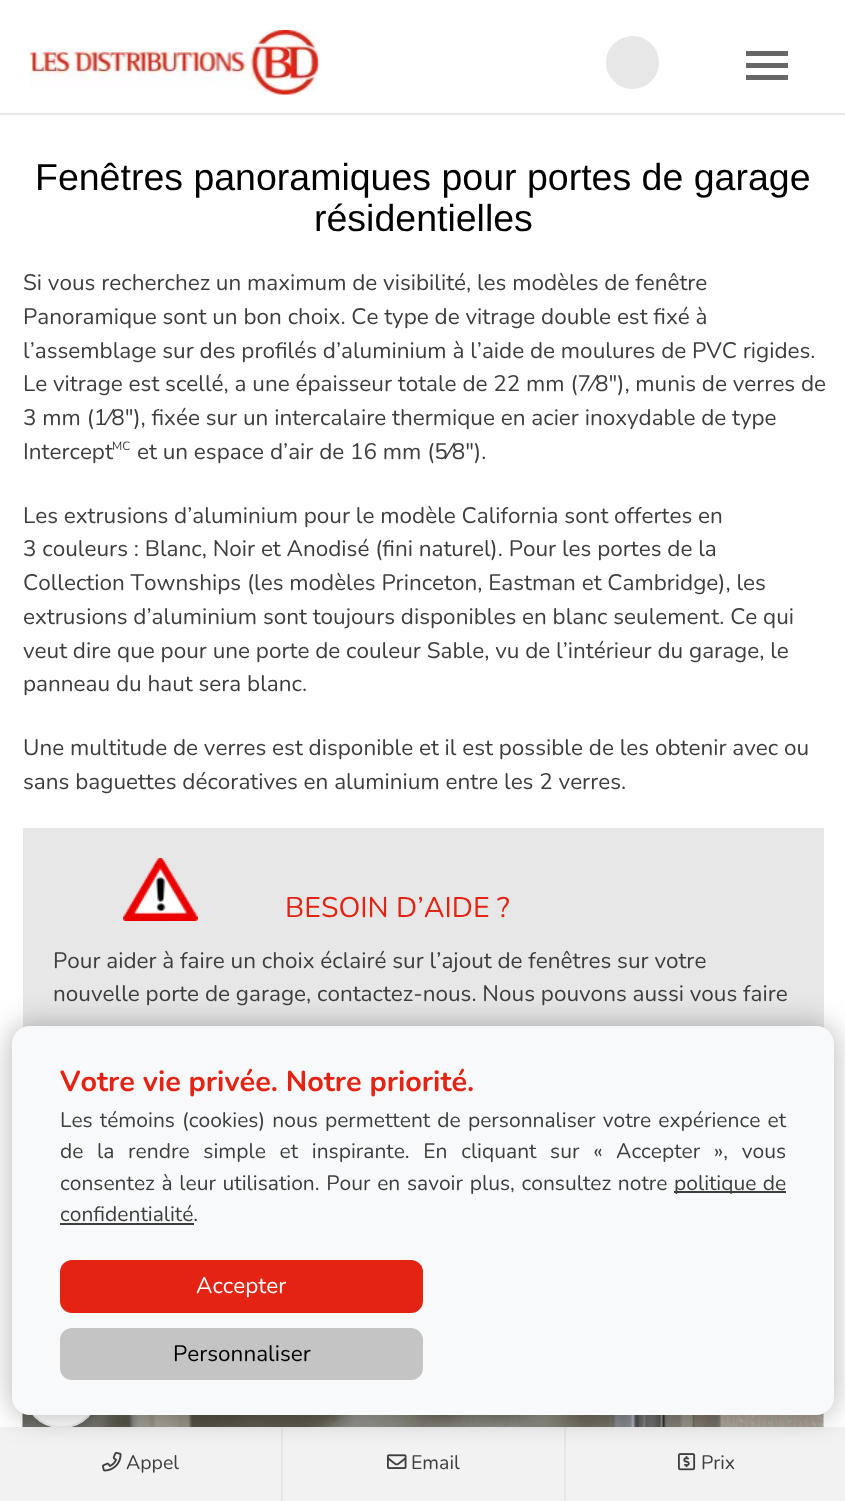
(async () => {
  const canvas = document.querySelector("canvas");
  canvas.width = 845;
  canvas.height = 1501;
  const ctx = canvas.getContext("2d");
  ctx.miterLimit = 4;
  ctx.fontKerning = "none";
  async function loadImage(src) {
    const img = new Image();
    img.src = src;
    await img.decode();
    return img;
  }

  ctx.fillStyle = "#ffffff";
  ctx.fillRect(0, 0, 845, 1501);
  ctx.fillStyle = "#e7e7e7";
  ctx.fillRect(23, 828, 801, 200);
  ctx.drawImage(await loadImage("img/1.png"), 123, 858, 75, 63);
  ctx.drawImage(await loadImage("img/2.png"), 22, 1413, 802, 14);
  ctx.fillRect(0, 113, 845, 2);
  ctx.drawImage(await loadImage("img/3.png"), 30, 30, 290, 65);
  ctx.beginPath();
  ctx.arc(632.5, 62.5, 26.5, 0, Math.PI * 2);
  ctx.fill();
  for (const [x, y, w, h, color] of [
    [746, 63, 42, 5, "#676768"],
    [746, 51, 42, 5, "#676768"],
    [746, 75, 42, 5, "#676768"],
  ]) {
    ctx.fillStyle = color;
    ctx.fillRect(x, y, w, h);
  }
  ctx.fillStyle = "rgba(0, 0, 0, 0.2)";
  ctx.filter = "blur(5px)";
  ctx.beginPath();
  ctx.roundRect(24, 1353, 75, 75, 36);
  ctx.fill();
  ctx.filter = "none";
  ctx.fillStyle = "#ffffff";
  ctx.beginPath();
  ctx.roundRect(25, 1354, 73, 73, 35);
  ctx.fill();
  ctx.strokeStyle = "#eeeeee";
  ctx.lineWidth = 2;
  ctx.stroke();
  ctx.fillStyle = "#f2f2f2";
  ctx.fillRect(0, 1427, 845, 74);
  ctx.fillStyle = "#e7e7e7";
  ctx.fillRect(281, 1427, 2, 74);
  ctx.drawImage(await loadImage("img/4.png"), 102, 1451, 20, 21);
  ctx.fillRect(564, 1427, 2, 74);
  ctx.drawImage(await loadImage("img/5.png"), 387, 1454, 20, 15);
  ctx.drawImage(await loadImage("img/6.png"), 678, 1453, 18, 18);
  ctx.fillStyle = "rgba(0, 0, 0, 0.3)";
  ctx.filter = "blur(15px)";
  ctx.beginPath();
  ctx.roundRect(12, 1026, 822, 389, 18);
  ctx.fill();
  ctx.filter = "none";
  ctx.fillStyle = "#f8f9fa";
  ctx.beginPath();
  ctx.roundRect(12, 1026, 822, 389, 18);
  ctx.fill();
  ctx.fillStyle = "#3d3e3d";
  ctx.fillRect(674, 1191, 112, 2);
  ctx.fillRect(60, 1223, 134, 2);
  ctx.fillStyle = "#e42313";
  ctx.beginPath();
  ctx.roundRect(60, 1260, 363, 53, 12);
  ctx.fill();
  ctx.fillStyle = "#c4c4c4";
  ctx.beginPath();
  ctx.roundRect(60, 1328, 363, 52, 12);
  ctx.fill();
  ctx.font = "37.5px Liberation Sans";
  ctx.fillStyle = "#000000";
  ctx.fillText("Fenêtres panoramiques pour portes de garage", 35, 190);
  ctx.fillText("résidentielles", 314, 231);
  ctx.font = "22.5px Nunito";
  ctx.fillStyle = "#3d3e3d";
  for (const [text, x, y] of [
    ["Si vous recherchez un maximum de visibilité, les modèles de fenêtre", 23, 290],
    ["Panoramique sont un bon choix. Ce type de vitrage double est fixé à", 23, 324],
    ["l’assemblage sur des profilés d’aluminium à l’aide de moulures de PVC rigides.", 23, 358],
    ["Le vitrage est scellé, a une épaisseur totale de 22 mm (7⁄8\"), munis de verres de", 23, 391],
    ["3 mm (1⁄8\"), fixée sur un intercalaire thermique en acier inoxydable de type", 23, 425],
    ["Intercept", 23, 459],
  ]) {
    ctx.fillText(text, x, y);
  }
  ctx.font = "12px Nunito";
  ctx.fillText("MC", 112, 450);
  ctx.font = "22.5px Nunito";
  for (const [text, x, y] of [
    ["et un espace d’air de 16 mm (5⁄8\").", 137, 459],
    ["Les extrusions d’aluminium pour le modèle California sont offertes en", 23, 523],
    ["3 couleurs : Blanc, Noir et Anodisé (fini naturel). Pour les portes de la", 23, 556],
    ["Collection Townships (les modèles Princeton, Eastman et Cambridge), les", 23, 590],
    ["extrusions d’aluminium sont toujours disponibles en blanc seulement. Ce qui", 23, 624],
    ["veut dire que pour une porte de couleur Sable, vu de l’intérieur du garage, le", 23, 658],
    ["panneau du haut sera blanc.", 23, 691],
    ["Une multitude de verres est disponible et il est possible de les obtenir avec ou", 23, 755],
    ["sans baguettes décoratives en aluminium entre les 2 verres.", 23, 789],
  ]) {
    ctx.fillText(text, x, y);
  }
  ctx.font = "28.5px Nunito";
  ctx.fillStyle = "#e42313";
  ctx.fillText("BESOIN D’AIDE ?", 285, 917);
  ctx.font = "22.5px Nunito";
  ctx.fillStyle = "#3d3e3d";
  ctx.fillText("Pour aider à faire un choix éclairé sur l’ajout de fenêtres sur votre", 53, 968);
  ctx.fillText("nouvelle porte de garage, contactez-nous. Nous pouvons aussi vous faire", 53, 1001);
  ctx.font = "19.5px Nunito";
  for (const [text, x, y] of [
    ["Appel", 126, 1469],
    ["Email", 411, 1469],
    ["Prix", 701, 1469],
  ]) {
    ctx.fillText(text, x, y);
  }
  ctx.font = "bold 28.75px Nunito";
  ctx.fillStyle = "#e42313";
  ctx.fillText("Votre vie privée. Notre priorité.", 60, 1091);
  ctx.wordSpacing = "1.75px";
  ctx.font = "21px Nunito";
  ctx.fillStyle = "#3d3e3d";
  ctx.fillText("Les témoins (cookies) nous permettent de personnaliser votre expérience et", 60, 1127);
  ctx.wordSpacing = "8.25px";
  ctx.fillText("de la rendre simple et inspirante. En cliquant sur « Accepter », vous", 60, 1158);
  ctx.wordSpacing = "1.25px";
  ctx.fillText("consentez à leur utilisation. Pour en savoir plus, consultez notre", 60, 1190);
  ctx.wordSpacing = "1px";
  ctx.fillText("politique de", 674, 1190);
  ctx.wordSpacing = "0px";
  ctx.fillText("confidentialité.", 60, 1221);
  ctx.font = "22.5px Nunito";
  ctx.fillStyle = "#ffffff";
  ctx.fillText("Accepter", 196, 1293);
  ctx.fillStyle = "#000000";
  ctx.fillText("Personnaliser", 173, 1361);
})();
